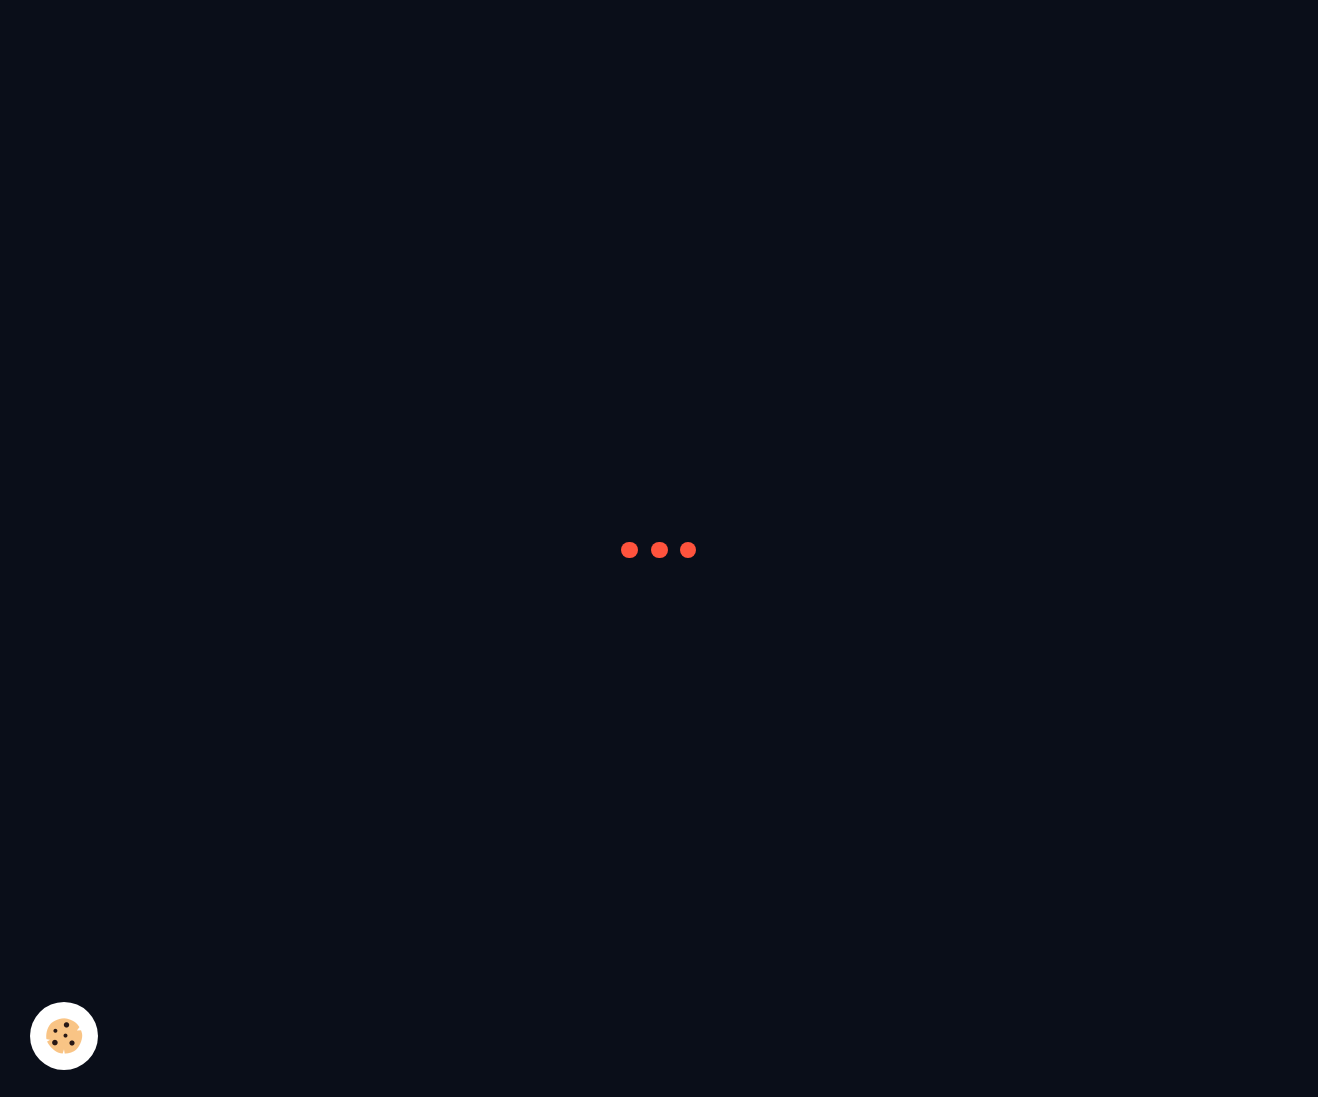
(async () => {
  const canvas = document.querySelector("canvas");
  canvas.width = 1318;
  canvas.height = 1097;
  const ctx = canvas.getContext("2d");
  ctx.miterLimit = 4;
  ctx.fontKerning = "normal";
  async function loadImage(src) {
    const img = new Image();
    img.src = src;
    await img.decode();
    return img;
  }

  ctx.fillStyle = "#0a0e19";
  ctx.fillRect(0, 0, 1318, 1097);
  ctx.fillStyle = "#ff533d";
  ctx.beginPath();
  ctx.roundRect(621, 542, 17, 16, 8);
  ctx.fill();
  ctx.beginPath();
  ctx.roundRect(651, 542, 17, 16, 8);
  ctx.fill();
  ctx.beginPath();
  ctx.arc(688, 550, 8, 0, Math.PI * 2);
  ctx.fill();
  ctx.fillStyle = "#ffffff";
  ctx.beginPath();
  ctx.arc(64, 1036, 34, 0, Math.PI * 2);
  ctx.fill();
  ctx.drawImage(await loadImage("img/1.png"), 46, 1018, 37, 36);
})();
